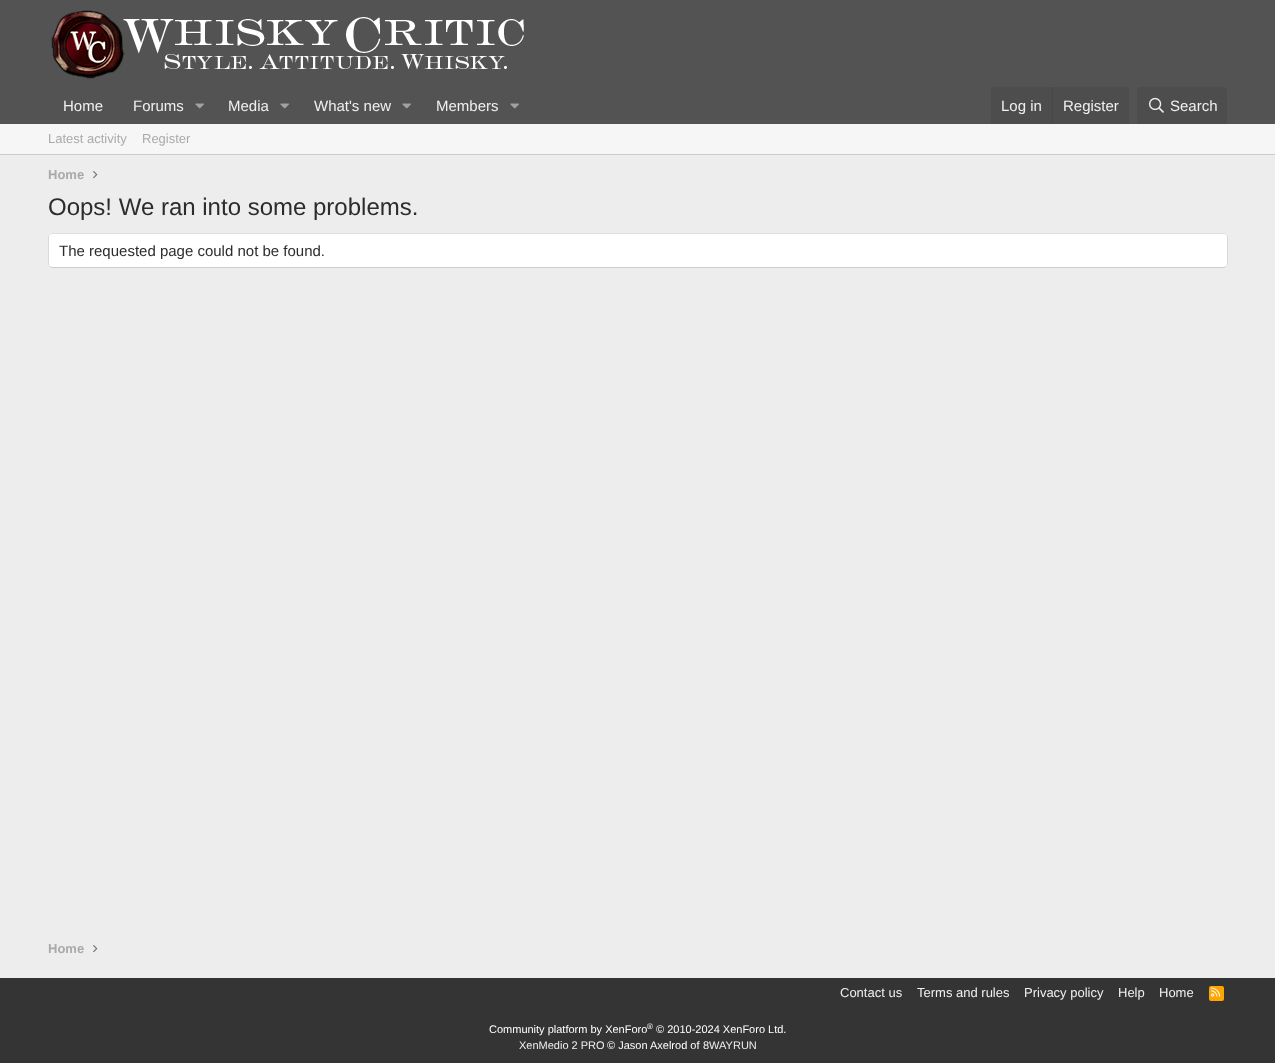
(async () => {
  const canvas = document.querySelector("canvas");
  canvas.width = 1275;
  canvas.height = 1063;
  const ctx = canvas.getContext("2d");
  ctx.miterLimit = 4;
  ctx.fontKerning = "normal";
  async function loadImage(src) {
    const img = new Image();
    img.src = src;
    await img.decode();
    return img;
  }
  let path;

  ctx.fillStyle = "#ededed";
  ctx.fillRect(0, 0, 1275, 1063);
  ctx.fillStyle = "#535353";
  ctx.fillRect(0, 0, 1275, 124);
  ctx.drawImage(await loadImage("img/1.png"), 51, 10, 473, 69);
  ctx.drawImage(await loadImage("img/2.png"), 195, 103, 9, 6);
  ctx.drawImage(await loadImage("img/2.png"), 280, 103, 9, 6);
  ctx.drawImage(await loadImage("img/2.png"), 402, 103, 9, 6);
  ctx.drawImage(await loadImage("img/2.png"), 510, 103, 9, 6);
  ctx.fillStyle = "#4d4d4d";
  ctx.beginPath();
  ctx.roundRect(991, 87, 138, 37, [4, 4, 0, 0]);
  ctx.fill();
  ctx.fillStyle = "#484848";
  ctx.fillRect(1052, 87, 1, 37);
  ctx.fillStyle = "#4d4d4d";
  ctx.beginPath();
  ctx.roundRect(1137, 87, 90, 37, [4, 4, 0, 0]);
  ctx.fill();
  ctx.drawImage(await loadImage("img/3.png"), 1149, 97, 15, 16);
  ctx.fillStyle = "#f6f6f6";
  ctx.fillRect(0, 124, 1275, 30);
  ctx.fillStyle = "#cccccc";
  ctx.fillRect(0, 154, 1275, 1);
  ctx.drawImage(await loadImage("img/4.png"), 93, 171, 5, 8);
  ctx.fillStyle = "#ffffff";
  ctx.beginPath();
  ctx.roundRect(48, 233, 1180, 35, 4);
  ctx.fill();
  path = new Path2D("M49.5 234.5L52 233.5H1224L1226.5 234.5");
  ctx.strokeStyle = "#e0e0e0";
  ctx.stroke(path);
  path = new Path2D("M1226.5 234.5C1227 235 1227.5 236 1227.5 237V264C1227.5 265 1227 266 1226.5 266.5");
  ctx.strokeStyle = "#d9d9d9";
  ctx.stroke(path);
  path = new Path2D("M1226.5 266.5L1224 267.5H52L49.5 266.5");
  ctx.strokeStyle = "#cccccc";
  ctx.stroke(path);
  path = new Path2D("M49.5 266.5C49 266 48.5 265 48.5 264V237C48.5 236 49 235 49.5 234.5");
  ctx.strokeStyle = "#d9d9d9";
  ctx.stroke(path);
  ctx.drawImage(await loadImage("img/4.png"), 93, 945, 5, 8);
  ctx.fillStyle = "#343434";
  ctx.fillRect(0, 978, 1275, 85);
  ctx.fillStyle = "#ffa500";
  ctx.beginPath();
  ctx.roundRect(1209, 986, 15, 15, 2);
  ctx.fill();
  ctx.drawImage(await loadImage("img/5.png"), 1211, 987, 10, 10);
  ctx.font = "15px Liberation Sans";
  ctx.fillStyle = "#f0f0f0";
  for (const [text, x, y] of [
    ["Home", 63, 111],
    ["Forums", 133, 111],
    ["Media", 228, 111],
    ["What's new", 314, 111],
    ["Members", 436, 111],
    ["Log in", 1001, 111],
    ["Register", 1063, 111],
    ["Search", 1170, 111],
  ]) {
    ctx.fillText(text, x, y);
  }
  ctx.font = "13px Liberation Sans";
  ctx.fillStyle = "#aaaaaa";
  ctx.fillText("Latest activity", 48, 143);
  ctx.fillText("Register", 142, 143);
  ctx.font = "bold 13px Liberation Sans";
  ctx.fillText("Home", 48, 179);
  ctx.font = "24px Liberation Sans";
  ctx.fillStyle = "#2c2c2c";
  ctx.fillText("Oops! We ran into some problems.", 48, 215);
  ctx.font = "15px Liberation Sans";
  ctx.fillText("The requested page could not be found.", 59, 256);
  ctx.font = "bold 13px Liberation Sans";
  ctx.fillStyle = "#aaaaaa";
  ctx.fillText("Home", 48, 953);
  ctx.font = "13px Liberation Sans";
  ctx.fillStyle = "#f0f0f0";
  for (const [text, x, y] of [
    ["Contact us", 840, 997],
    ["Terms and rules", 917, 997],
    ["Privacy policy", 1024, 997],
    ["Help", 1118, 997],
    ["Home", 1159, 997],
  ]) {
    ctx.fillText(text, x, y);
  }
  ctx.font = "11px Liberation Sans";
  ctx.fillStyle = "#ffffff";
  ctx.fillText("Community platform by XenForo", 489, 1033);
  ctx.font = "8px Liberation Sans";
  ctx.fillText("®", 647, 1029);
  ctx.font = "11px Liberation Sans";
  ctx.fillText("© 2010-2024 XenForo Ltd.", 656, 1033);
  ctx.fillStyle = "#f0f0f0";
  ctx.fillText("XenMedio 2 PRO", 519, 1049);
  ctx.fillStyle = "#ffffff";
  ctx.fillText("© Jason Axelrod of", 607, 1049);
  ctx.fillStyle = "#f0f0f0";
  ctx.fillText("8WAYRUN", 703, 1049);
})();
